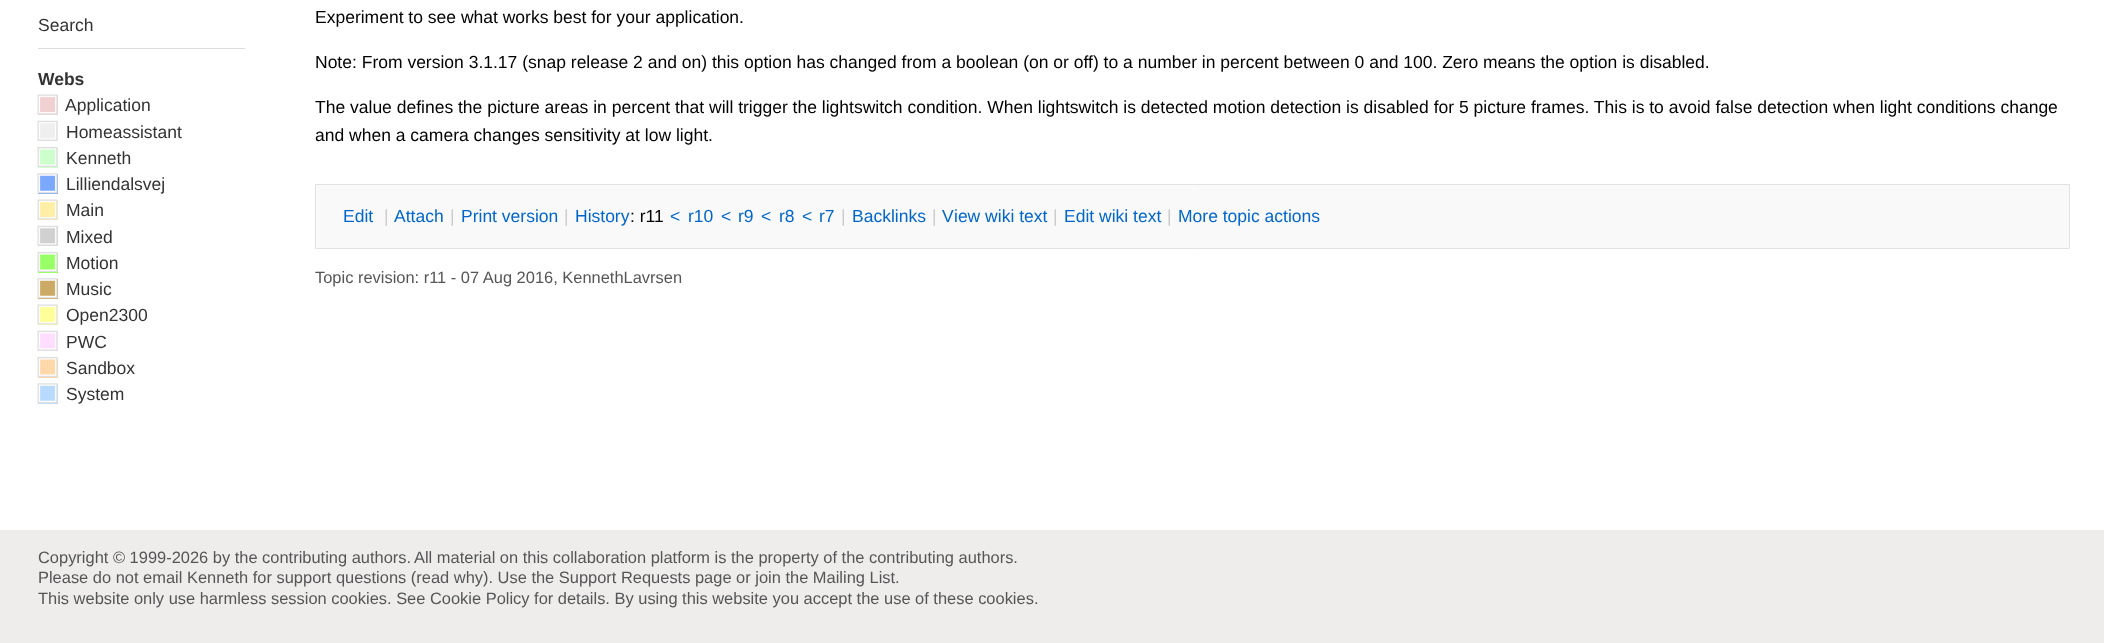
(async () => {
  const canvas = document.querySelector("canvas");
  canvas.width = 2104;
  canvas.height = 643;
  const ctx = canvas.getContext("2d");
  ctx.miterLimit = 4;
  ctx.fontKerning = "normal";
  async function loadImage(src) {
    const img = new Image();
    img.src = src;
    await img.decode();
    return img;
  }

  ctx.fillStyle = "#ffffff";
  ctx.fillRect(0, 0, 2104, 643);
  ctx.fillStyle = "#dddddd";
  ctx.fillRect(38, 48, 207, 1);
  ctx.fillStyle = "#f0d0d0";
  ctx.fillRect(38, 95, 20, 20);
  ctx.drawImage(await loadImage("img/1.png"), 37, 94, 21, 21);
  ctx.fillStyle = "#efefef";
  ctx.fillRect(38, 121, 20, 20);
  ctx.drawImage(await loadImage("img/2.png"), 37, 120, 21, 21);
  ctx.fillStyle = "#ccffcc";
  ctx.fillRect(38, 148, 20, 20);
  ctx.drawImage(await loadImage("img/3.png"), 37, 147, 21, 20);
  ctx.fillStyle = "#7aa8fc";
  ctx.fillRect(38, 174, 20, 20);
  ctx.drawImage(await loadImage("img/4.png"), 37, 173, 21, 21);
  ctx.fillStyle = "#ffefa6";
  ctx.fillRect(38, 200, 20, 20);
  ctx.drawImage(await loadImage("img/5.png"), 37, 199, 21, 21);
  ctx.fillStyle = "#d0d0d0";
  ctx.fillRect(38, 226, 20, 20);
  ctx.drawImage(await loadImage("img/6.png"), 37, 225, 21, 21);
  ctx.fillStyle = "#99ff66";
  ctx.fillRect(38, 253, 20, 20);
  ctx.drawImage(await loadImage("img/7.png"), 37, 252, 21, 20);
  ctx.fillStyle = "#ccaa66";
  ctx.fillRect(38, 279, 20, 20);
  ctx.drawImage(await loadImage("img/8.png"), 37, 278, 21, 21);
  ctx.fillStyle = "#ffff99";
  ctx.fillRect(38, 305, 20, 20);
  ctx.drawImage(await loadImage("img/9.png"), 37, 304, 21, 21);
  ctx.fillStyle = "#ffddff";
  ctx.fillRect(38, 331, 20, 20);
  ctx.drawImage(await loadImage("img/10.png"), 37, 330, 21, 21);
  ctx.fillStyle = "#ffd8aa";
  ctx.fillRect(38, 358, 20, 20);
  ctx.drawImage(await loadImage("img/11.png"), 37, 357, 21, 20);
  ctx.fillStyle = "#b9daff";
  ctx.fillRect(38, 384, 20, 20);
  ctx.drawImage(await loadImage("img/12.png"), 37, 383, 21, 21);
  ctx.fillStyle = "#f9f9fa";
  ctx.beginPath();
  ctx.rect(315.5, 184.5, 1754, 64);
  ctx.fill();
  ctx.strokeStyle = "#e2e2e2";
  ctx.stroke();
  ctx.fillStyle = "#eeedec";
  ctx.fillRect(0, 530, 2104, 113);
  ctx.font = "17.5px Liberation Sans";
  ctx.fillStyle = "#333333";
  ctx.fillText("Search", 38, 31);
  ctx.font = "bold 17.5px Liberation Sans";
  ctx.fillText("Webs", 38, 85);
  ctx.font = "17.5px Liberation Sans";
  for (const [text, x, y] of [
    ["Application", 65, 111],
    ["Homeassistant", 66, 138],
    ["Kenneth", 66, 164],
    ["Lilliendalsvej", 66, 190],
    ["Main", 66, 216],
    ["Mixed", 66, 243],
    ["Motion", 66, 269],
    ["Music", 66, 295],
    ["Open2300", 66, 321],
    ["PWC", 66, 348],
    ["Sandbox", 66, 374],
    ["System", 66, 400],
  ]) {
    ctx.fillText(text, x, y);
  }
  ctx.fillStyle = "#000000";
  for (const [text, x, y] of [
    ["Experiment to see what works best for your application.", 315, 23],
    ["Note: From version 3.1.17 (snap release 2 and on) this option has changed from a boolean (on or off) to a number in percent between 0 and 100. Zero means the option is disabled.", 315, 68],
    ["The value defines the picture areas in percent that will trigger the lightswitch condition. When lightswitch is detected motion detection is disabled for 5 picture frames. This is to avoid false detection when light conditions change", 315, 113],
    ["and when a camera changes sensitivity at low light.", 315, 141],
  ]) {
    ctx.fillText(text, x, y);
  }
  ctx.fillStyle = "#0066cc";
  ctx.fillText("Edit", 343, 222);
  ctx.fillStyle = "#cccccc";
  ctx.fillText("|", 384, 222);
  ctx.fillStyle = "#0066cc";
  ctx.fillText("Attach", 394, 222);
  ctx.fillStyle = "#cccccc";
  ctx.fillText("|", 450, 222);
  ctx.fillStyle = "#0066cc";
  ctx.fillText("Print version", 461, 222);
  ctx.fillStyle = "#cccccc";
  ctx.fillText("|", 564, 222);
  ctx.fillStyle = "#0066cc";
  ctx.fillText("History", 575, 222);
  ctx.fillStyle = "#000000";
  ctx.fillText(": r11", 630, 222);
  ctx.fillStyle = "#0066cc";
  for (const [text, x, y] of [
    ["<", 670, 222],
    ["r10", 688, 222],
    ["<", 721, 222],
    ["r9", 738, 222],
    ["<", 761, 222],
    ["r8", 779, 222],
    ["<", 802, 222],
    ["r7", 819, 222],
  ]) {
    ctx.fillText(text, x, y);
  }
  ctx.fillStyle = "#cccccc";
  ctx.fillText("|", 841, 222);
  ctx.fillStyle = "#0066cc";
  ctx.fillText("Backlinks", 852, 222);
  ctx.fillStyle = "#cccccc";
  ctx.fillText("|", 932, 222);
  ctx.fillStyle = "#0066cc";
  ctx.fillText("V", 942, 222);
  ctx.fillText("iew wiki text", 954, 222);
  ctx.fillStyle = "#cccccc";
  ctx.fillText("|", 1053, 222);
  ctx.fillStyle = "#0066cc";
  ctx.fillText("Edit wiki text", 1064, 222);
  ctx.fillStyle = "#cccccc";
  ctx.fillText("|", 1167, 222);
  ctx.fillStyle = "#0066cc";
  ctx.fillText("More topic actions", 1178, 222);
  ctx.font = "16.45px Liberation Sans";
  ctx.fillStyle = "#565656";
  for (const [text, x, y] of [
    ["Topic revision: r11 - 07 Aug 2016, KennethLavrsen", 315, 283],
    ["Copyright © 1999-2026 by the contributing authors.", 38, 563],
    ["All material on this collaboration platform is the property of the contributing authors.", 414, 563],
    ["Please do not email Kenneth for support questions (read why). Use the Support Requests page or join the Mailing List.", 38, 583],
    ["This website only use harmless session cookies. See Cookie Policy for details. By using this website you accept the use of these cookies.", 38, 604],
  ]) {
    ctx.fillText(text, x, y);
  }
})();
